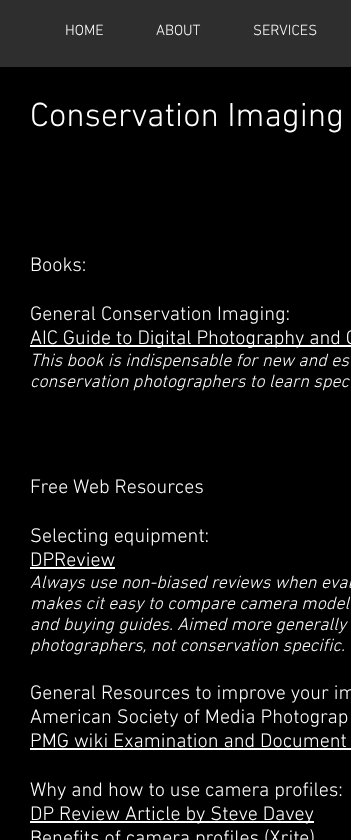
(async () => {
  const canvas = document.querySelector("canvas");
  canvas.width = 351;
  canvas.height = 840;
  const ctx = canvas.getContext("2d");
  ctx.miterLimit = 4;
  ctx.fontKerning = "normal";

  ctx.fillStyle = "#000000";
  ctx.fillRect(0, 0, 351, 840);
  for (const [x, y, w, h, color] of [
    [0, 0, 351, 67, "#2f2e2e"],
    [30, 345, 321, 2, "#ffffff"],
    [30, 567, 85, 2, "#ffffff"],
    [30, 748, 321, 2, "#ffffff"],
    [30, 821, 284, 2, "#ffffff"],
  ]) {
    ctx.fillStyle = color;
    ctx.fillRect(x, y, w, h);
  }
  ctx.font = "300 15px 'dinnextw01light'";
  for (const [text, x, y] of [
    ["HOME", 65, 35],
    ["ABOUT", 156, 35],
    ["SERVICES", 253, 35],
  ]) {
    ctx.fillText(text, x, y);
  }
  ctx.font = "300 34px 'dinnextw01light'";
  ctx.fillText("Conservation Imaging", 30, 126);
  ctx.font = "300 20px 'dinnextw01light'";
  for (const [text, x, y] of [
    ["Books:", 30, 271],
    ["General Conservation Imaging:", 30, 320],
    ["AIC Guide to Digital Photography and C", 30, 344],
  ]) {
    ctx.fillText(text, x, y);
  }
  ctx.font = "italic 300 18px 'dinnextw01light'";
  ctx.fillText("This book is indispensable for new and es", 30, 366);
  ctx.fillText("conservation photographers to learn spec", 30, 387);
  ctx.font = "300 20px 'dinnextw01light'";
  for (const [text, x, y] of [
    ["Free Web Resources", 30, 493],
    ["Selecting equipment:", 30, 542],
    ["DPReview", 30, 566],
  ]) {
    ctx.fillText(text, x, y);
  }
  ctx.font = "italic 300 18px 'dinnextw01light'";
  for (const [text, x, y] of [
    ["Always use non-biased reviews when eval", 30, 588],
    ["makes cit easy to compare camera model", 30, 609],
    ["and buying guides. Aimed more generally", 30, 630],
    ["photographers, not conservation specific.", 30, 651],
  ]) {
    ctx.fillText(text, x, y);
  }
  ctx.font = "300 20px 'dinnextw01light'";
  for (const [text, x, y] of [
    ["General Resources to improve your im", 30, 699],
    ["American Society of Media Photograp", 30, 723],
    ["PMG wiki Examination and Document", 30, 747],
    ["Why and how to use camera profiles:", 30, 796],
    ["DP Review Article by Steve Davey", 30, 820],
    ["Benefits of camera profiles (Xrite)", 30, 844],
  ]) {
    ctx.fillText(text, x, y);
  }
})();
